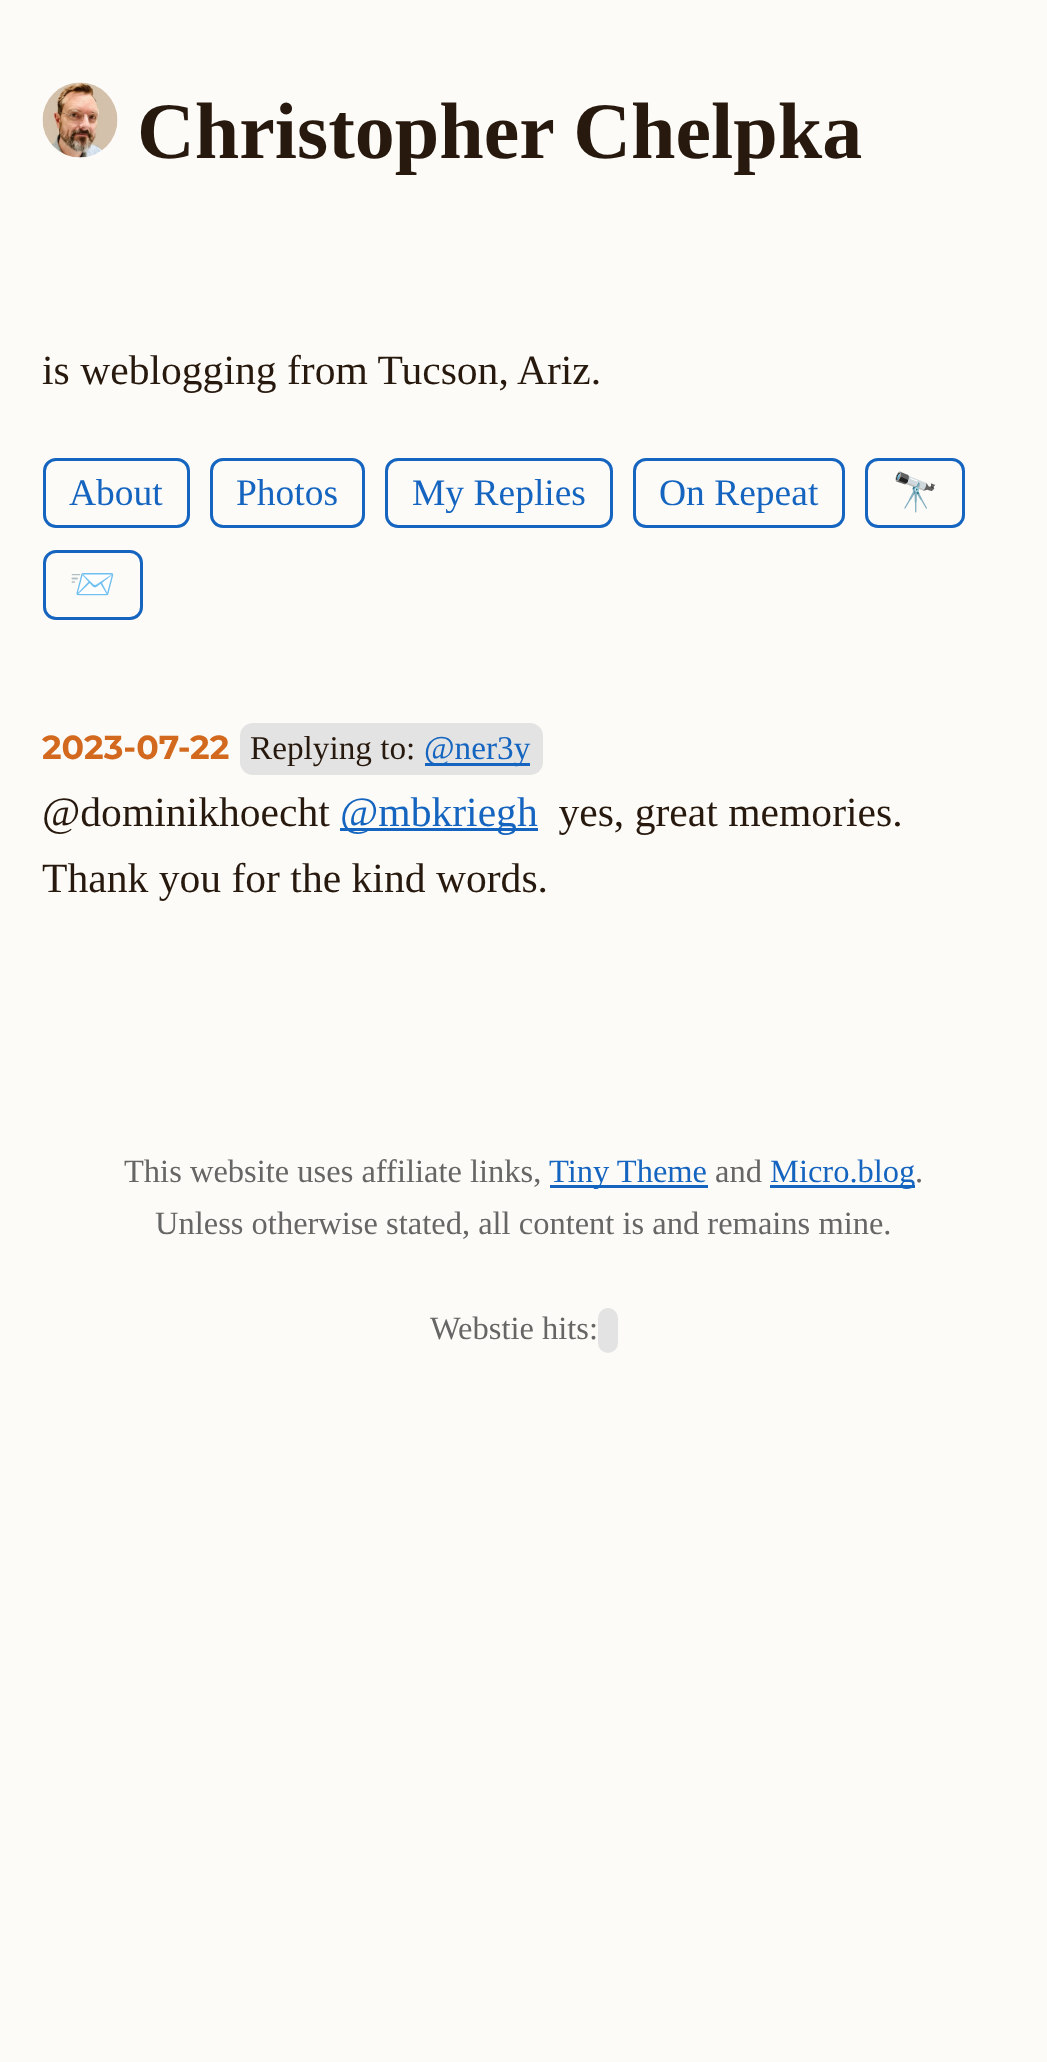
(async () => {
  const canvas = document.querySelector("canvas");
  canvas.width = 1047;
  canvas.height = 2062;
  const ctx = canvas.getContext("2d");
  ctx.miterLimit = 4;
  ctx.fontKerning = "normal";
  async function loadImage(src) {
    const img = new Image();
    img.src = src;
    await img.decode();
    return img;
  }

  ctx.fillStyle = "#fcfbf7";
  ctx.fillRect(0, 0, 1047, 2062);
  ctx.drawImage(await loadImage("img/1.png"), 42, 82, 76, 76);
  ctx.beginPath();
  ctx.roundRect(44.5, 459.5, 144, 67, 11.5);
  ctx.strokeStyle = "#1565c0";
  ctx.lineWidth = 3;
  ctx.stroke();
  ctx.beginPath();
  ctx.roundRect(211.5, 459.5, 152, 67, 11.5);
  ctx.stroke();
  ctx.beginPath();
  ctx.roundRect(386.5, 459.5, 225, 67, 11.5);
  ctx.stroke();
  ctx.beginPath();
  ctx.roundRect(634.5, 459.5, 209, 67, 11.5);
  ctx.stroke();
  ctx.beginPath();
  ctx.roundRect(866.5, 459.5, 97, 67, 11.5);
  ctx.stroke();
  ctx.beginPath();
  ctx.roundRect(44.5, 551.5, 97, 67, 11.5);
  ctx.stroke();
  ctx.fillStyle = "#e3e3e3";
  ctx.beginPath();
  ctx.roundRect(240, 723, 303, 52, 13);
  ctx.fill();
  for (const [x, y, w, h, color] of [
    [425, 763, 105, 3, "#1565c0"],
    [340, 828, 198, 3, "#1565c0"],
    [550, 1185, 158, 3, "#1565c0"],
    [770, 1185, 145, 3, "#1565c0"],
  ]) {
    ctx.fillStyle = color;
    ctx.fillRect(x, y, w, h);
  }
  ctx.fillStyle = "#e3e3e3";
  ctx.beginPath();
  ctx.roundRect(598, 1308, 20, 45, 10);
  ctx.fill();
  ctx.font = "bold 80px Liberation Serif";
  ctx.fillStyle = "#28190e";
  ctx.fillText("Christopher Chelpka", 137, 158);
  ctx.font = "41.6px Liberation Serif";
  ctx.fillText("is weblogging from Tucson, Ariz.", 42, 384);
  ctx.font = "37.5px Liberation Serif";
  ctx.fillStyle = "#1565c0";
  for (const [text, x, y] of [
    ["About", 69, 505],
    ["Photos", 236, 505],
    ["My Replies", 412, 505],
    ["On Repeat", 659, 505],
  ]) {
    ctx.fillText(text, x, y);
  }
  ctx.font = "37.5px Noto Color Emoji";
  ctx.fillText("🔭", 892, 505);
  ctx.fillText("📨", 69, 597);
  ctx.font = "bold 33.25px Montserrat";
  ctx.fillStyle = "#d2691e";
  ctx.fillText("2023-07-22", 42, 759);
  ctx.font = "33.25px Liberation Serif";
  ctx.fillStyle = "#28190e";
  ctx.fillText("Replying to:", 250, 759);
  ctx.fillStyle = "#1565c0";
  ctx.fillText("@ner3y", 424, 759);
  ctx.font = "41.6px Liberation Serif";
  ctx.fillStyle = "#28190e";
  ctx.fillText("@dominikhoecht", 42, 826);
  ctx.fillStyle = "#1565c0";
  ctx.fillText("@mbkriegh", 340, 826);
  ctx.fillStyle = "#28190e";
  ctx.fillText("￼ yes, great memories.", 548, 826);
  ctx.fillText("Thank you for the kind words. ￼", 42, 892);
  ctx.font = "32.5px Liberation Serif";
  ctx.fillStyle = "#666666";
  ctx.fillText("This website uses affiliate links,", 124, 1182);
  ctx.fillStyle = "#1565c0";
  ctx.fillText("Tiny Theme", 549, 1182);
  ctx.fillStyle = "#666666";
  ctx.fillText("and", 715, 1182);
  ctx.fillStyle = "#1565c0";
  ctx.fillText("Micro.blog", 770, 1182);
  ctx.fillStyle = "#666666";
  for (const [text, x, y] of [
    [".", 915, 1182],
    ["Unless otherwise stated, all content is and remains mine.", 155, 1234],
    ["Webstie hits:", 430, 1339],
  ]) {
    ctx.fillText(text, x, y);
  }
})();
